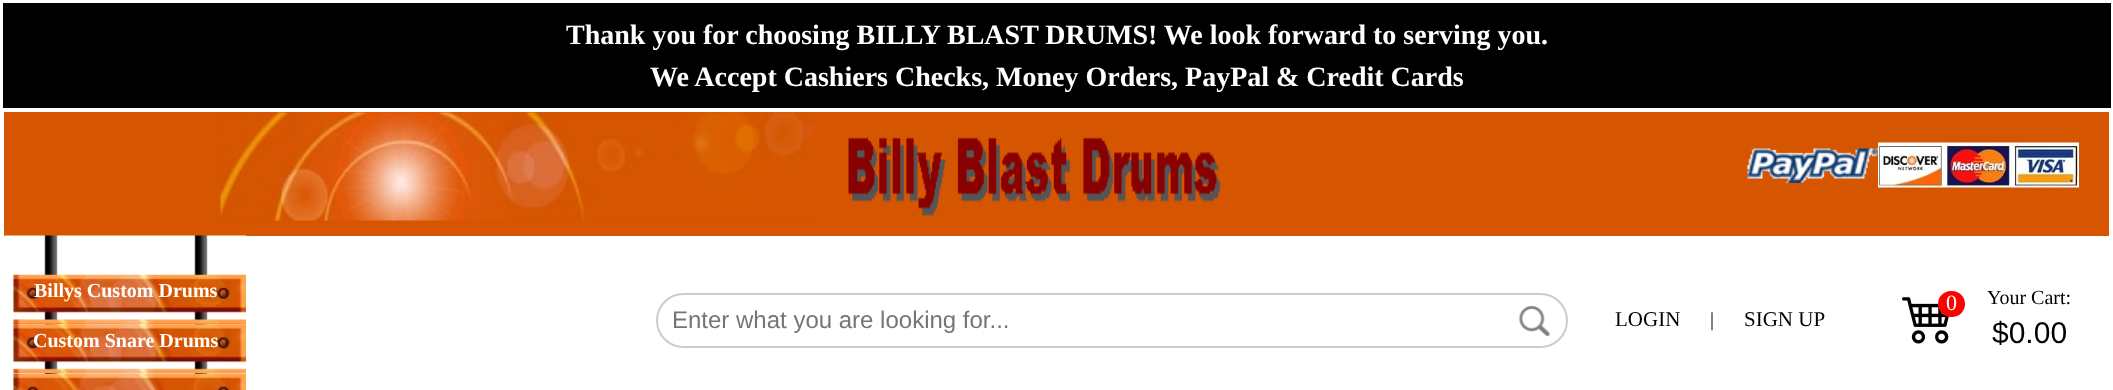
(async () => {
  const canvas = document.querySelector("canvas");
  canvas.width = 2113;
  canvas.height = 390;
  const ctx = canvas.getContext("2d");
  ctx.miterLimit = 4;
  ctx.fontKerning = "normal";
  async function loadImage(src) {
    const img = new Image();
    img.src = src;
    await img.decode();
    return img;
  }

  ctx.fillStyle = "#ffffff";
  ctx.fillRect(0, 0, 2113, 390);
  ctx.fillStyle = "#000000";
  ctx.fillRect(3, 3, 2108, 105);
  ctx.fillStyle = "#d65501";
  ctx.fillRect(4, 112, 2105, 124);
  ctx.drawImage(await loadImage("img/1.png"), 220, 112, 595, 109);
  ctx.drawImage(await loadImage("img/2.png"), 1747, 148, 131, 35);
  ctx.drawImage(await loadImage("img/3.png"), 1878, 142, 201, 46);
  ctx.drawImage(await loadImage("img/4.png"), 848, 137, 373, 79);
  ctx.drawImage(await loadImage("img/5.png"), 4, 235, 242, 155);
  ctx.drawImage(await loadImage("img/6.png"), 12, 274, 234, 50);
  ctx.drawImage(await loadImage("img/7.png"), 12, 324, 234, 50);
  ctx.drawImage(await loadImage("img/8.png"), 12, 373, 234, 17);
  ctx.beginPath();
  ctx.roundRect(657, 294, 910, 53, 26.5);
  ctx.strokeStyle = "#cccccc";
  ctx.lineWidth = 2;
  ctx.stroke();
  ctx.drawImage(await loadImage("img/9.png"), 1519, 306, 31, 30);
  ctx.drawImage(await loadImage("img/10.png"), 1902, 297, 47, 47);
  ctx.fillStyle = "#ff0000";
  ctx.beginPath();
  ctx.roundRect(1938, 291, 27, 26, 13);
  ctx.fill();
  ctx.font = "bold 28px Liberation Serif";
  ctx.fillStyle = "#ffffff";
  ctx.fillText("Thank you for choosing BILLY BLAST DRUMS! We look forward to serving you.", 566, 44);
  ctx.fillText("We Accept Cashiers Checks, Money Orders, PayPal & Credit Cards", 650, 86);
  ctx.font = "bold 20px Liberation Serif";
  ctx.fillText("Billys Custom Drums", 34, 297);
  ctx.fillText("Custom Snare Drums", 33, 347);
  ctx.font = "24px Liberation Sans";
  ctx.fillStyle = "#757575";
  ctx.fillText("Enter what you are looking for...", 672, 328);
  ctx.font = "21px Liberation Serif";
  ctx.fillStyle = "#000000";
  ctx.fillText("LOGIN", 1615, 326);
  ctx.font = "20px Liberation Serif";
  ctx.fillText("|", 1710, 326);
  ctx.font = "21px Liberation Serif";
  ctx.fillText("SIGN UP", 1744, 326);
  ctx.font = "22px Liberation Serif";
  ctx.fillStyle = "#ffffff";
  ctx.fillText("0", 1946, 310);
  ctx.font = "20px Liberation Serif";
  ctx.fillStyle = "#000000";
  ctx.fillText("Your Cart:", 1987, 304);
  ctx.font = "30px Liberation Sans";
  ctx.fillText("$0.00", 1992, 343);
})();
